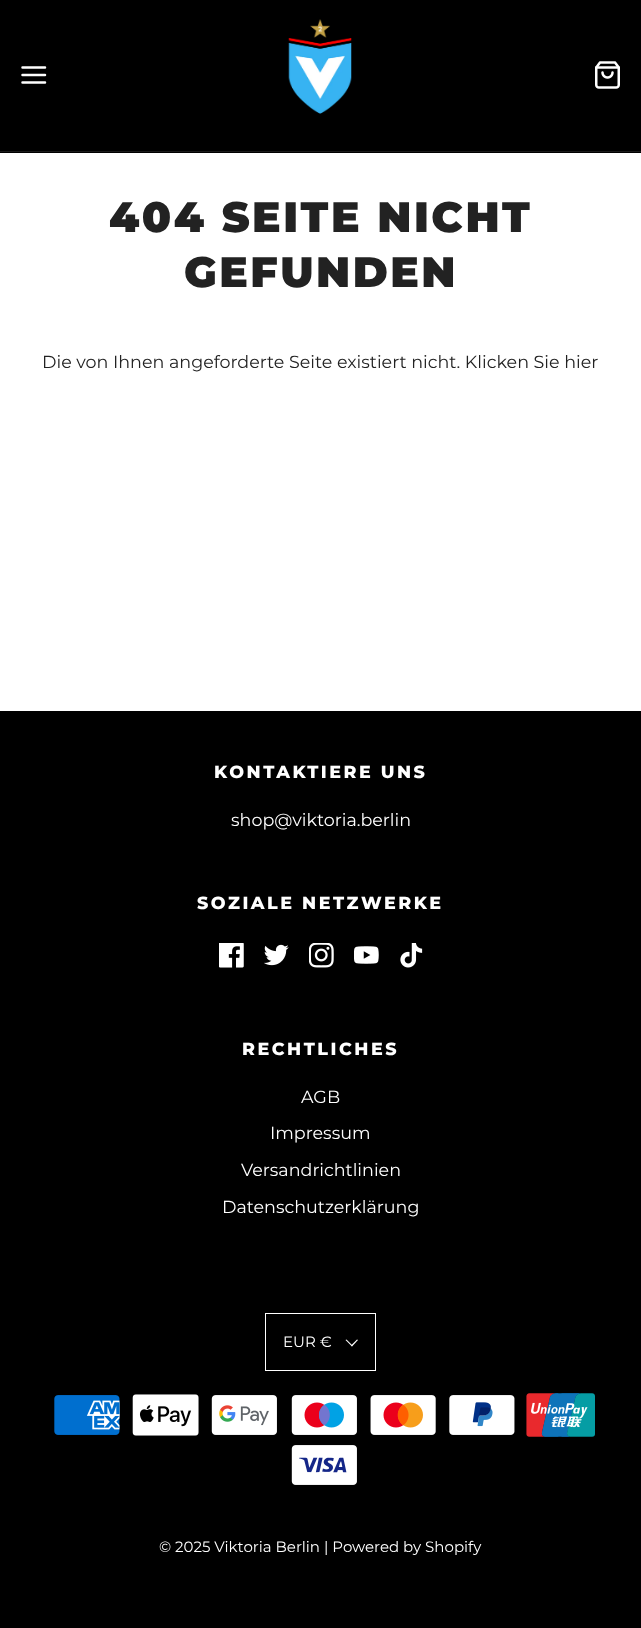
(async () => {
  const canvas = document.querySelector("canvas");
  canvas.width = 641;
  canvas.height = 1628;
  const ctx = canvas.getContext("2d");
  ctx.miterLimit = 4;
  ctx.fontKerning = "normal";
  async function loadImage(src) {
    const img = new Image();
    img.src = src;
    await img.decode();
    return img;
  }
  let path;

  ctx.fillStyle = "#ffffff";
  ctx.fillRect(0, 0, 641, 1628);
  ctx.fillStyle = "#000000";
  ctx.fillRect(0, 0, 641, 153);
  ctx.fillStyle = "#1a1a1a";
  ctx.fillRect(0, 151, 641, 1);
  path = new Path2D("M22.5 75H45M22.5 67.5H45M22.5 82.5H45");
  ctx.strokeStyle = "#ffffff";
  ctx.lineWidth = 2.5;
  ctx.lineCap = "round";
  ctx.lineJoin = "round";
  ctx.stroke(path);
  ctx.drawImage(await loadImage("img/1.png"), 288, 19, 64, 95);
  ctx.drawImage(await loadImage("img/2.png"), 595, 61, 25, 28);
  ctx.fillStyle = "#000000";
  ctx.fillRect(0, 711, 641, 917);
  ctx.drawImage(await loadImage("img/3.png"), 219, 943, 25, 25);
  ctx.drawImage(await loadImage("img/4.png"), 264, 944, 25, 22);
  ctx.drawImage(await loadImage("img/5.png"), 309, 943, 25, 25);
  ctx.drawImage(await loadImage("img/6.png"), 354, 946, 25, 18);
  ctx.drawImage(await loadImage("img/7.png"), 400, 943, 23, 25);
  ctx.lineWidth = 1;
  ctx.lineJoin = "miter";
  ctx.strokeRect(265.5, 1313.5, 110, 57);
  ctx.fillStyle = "#ffffff";
  path = new Path2D("M357 1339.5L358 1340L352 1346.5L351 1345.5Z");
  ctx.fill(path);
  path = new Path2D("M346.5 1339.5L352.5 1345.5L352 1346.5L345.5 1340Z");
  ctx.fill(path);
  ctx.drawImage(await loadImage("img/8.png"), 54, 1395, 66, 40);
  ctx.drawImage(await loadImage("img/9.png"), 132, 1394, 67, 42);
  ctx.drawImage(await loadImage("img/10.png"), 211, 1395, 66, 40);
  ctx.drawImage(await loadImage("img/11.png"), 291, 1395, 66, 40);
  ctx.drawImage(await loadImage("img/12.png"), 370, 1395, 66, 40);
  ctx.drawImage(await loadImage("img/13.png"), 449, 1395, 66, 40);
  ctx.drawImage(await loadImage("img/14.png"), 526, 1393, 69, 44);
  ctx.drawImage(await loadImage("img/15.png"), 291, 1445, 66, 40);
  ctx.letterSpacing = "2.5px";
  ctx.font = "900 42.5px Montserrat";
  ctx.fillStyle = "#222222";
  ctx.fillText("404 SEITE NICHT", 109, 232);
  ctx.fillText("GEFUNDEN", 184, 287);
  ctx.letterSpacing = "0px";
  ctx.font = "17.5px Montserrat";
  ctx.fillText("Die von Ihnen angeforderte Seite existiert nicht. Klicken Sie hier", 42, 368);
  ctx.letterSpacing = "2.5px";
  ctx.font = "800 17.5px Montserrat";
  ctx.fillStyle = "#ffffff";
  ctx.fillText("KONTAKTIERE UNS", 214, 778);
  ctx.letterSpacing = "0px";
  ctx.font = "17.5px Montserrat";
  ctx.fillText("shop@viktoria.berlin", 231, 826);
  ctx.letterSpacing = "2.5px";
  ctx.font = "800 17.5px Montserrat";
  ctx.fillText("SOZIALE NETZWERKE", 197, 909);
  ctx.fillText("RECHTLICHES", 242, 1055);
  ctx.letterSpacing = "0px";
  ctx.font = "17.5px Montserrat";
  for (const [text, x, y] of [
    ["AGB", 301, 1103],
    ["Impressum", 270, 1139],
    ["Versandrichtlinien", 241, 1176],
    ["Datenschutzerklärung", 222, 1213],
  ]) {
    ctx.fillText(text, x, y);
  }
  ctx.font = "15px Montserrat";
  ctx.fillText("EUR €", 283, 1347);
  ctx.fillText("© 2025 Viktoria Berlin | Powered by Shopify", 159, 1552);
})();
